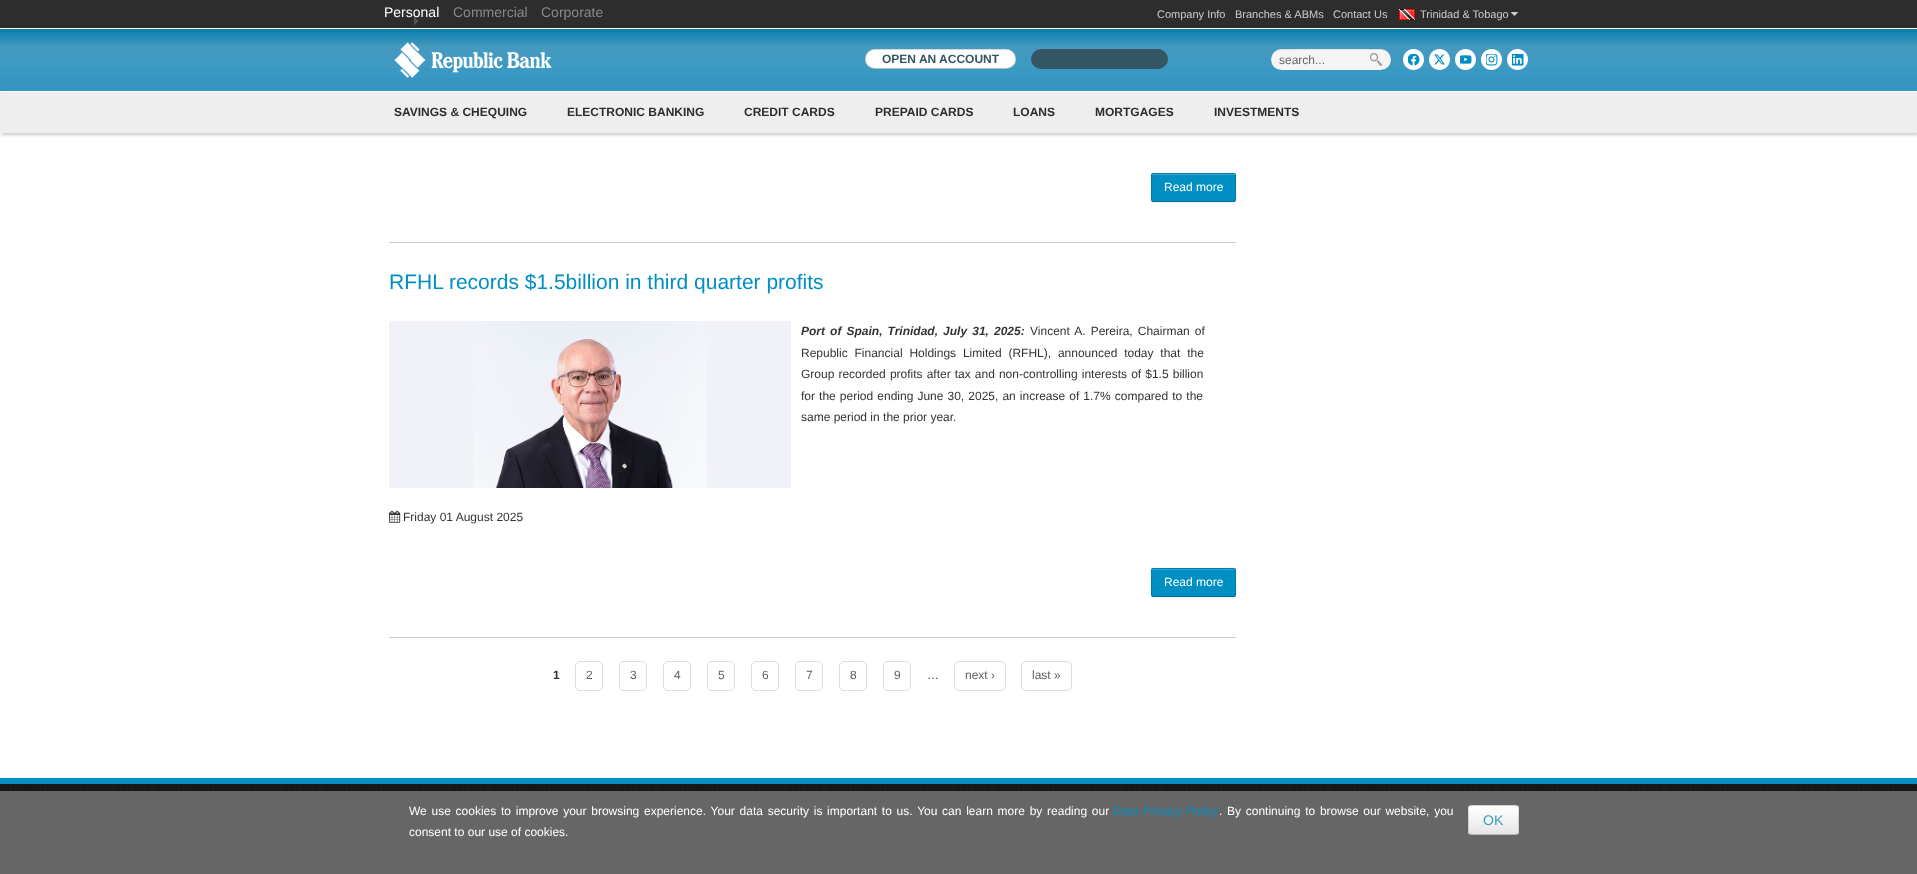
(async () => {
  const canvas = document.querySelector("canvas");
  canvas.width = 1917;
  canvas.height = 874;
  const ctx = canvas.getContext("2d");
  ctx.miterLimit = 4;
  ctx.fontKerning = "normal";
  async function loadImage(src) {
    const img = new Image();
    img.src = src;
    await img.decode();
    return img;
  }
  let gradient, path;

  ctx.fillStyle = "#ffffff";
  ctx.fillRect(0, 0, 1917, 874);
  ctx.fillStyle = "#2d2d2d";
  ctx.fillRect(0, 0, 1917, 28);
  ctx.drawImage(await loadImage("img/1.png"), 414, 17, 4, 8);
  ctx.drawImage(await loadImage("img/2.png"), 1399, 9, 16, 11);
  ctx.drawImage(await loadImage("img/3.png"), 1511, 12, 7, 4);
  ctx.fillStyle = "rgba(0, 0, 0, 0.2)";
  ctx.filter = "blur(1.5px)";
  ctx.beginPath();
  ctx.rect(1, 94, 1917, 41);
  ctx.fill();
  ctx.filter = "none";
  ctx.drawImage(await loadImage("img/4.png"), 0, 29, 1917, 62);
  ctx.drawImage(await loadImage("img/5.png"), 394, 42, 158, 36);
  ctx.fillStyle = "#ffffff";
  ctx.beginPath();
  ctx.roundRect(865, 49, 151, 20, 10);
  ctx.fill();
  path = new Path2D("M875 51H1008C1011 53 1015 55 1015 59C1015 45 989 50 984 50H897C892 50 865 45 866 59C866 55 869 51 875 51Z");
  ctx.fill(path);
  path = new Path2D("M1012.5 65.5C1011 67.5 1008.5 68.5 1006 68.5H875C872.5 68.5 870 67.5 868.5 65.5");
  ctx.strokeStyle = "rgba(0, 0, 0, 0.25)";
  ctx.stroke(path);
  path = new Path2D("M868.5 65.5C862.5 60 866.5 49.5 875 49.5H1006L1009.5 50C1016 53 1017.5 61 1012.5 65.5");
  ctx.strokeStyle = "rgba(0, 0, 0, 0.15)";
  ctx.stroke(path);
  ctx.fillStyle = "#345564";
  ctx.beginPath();
  ctx.roundRect(1031, 49, 137, 20, 10);
  ctx.fill();
  ctx.fillStyle = "#f5f5f5";
  ctx.beginPath();
  ctx.roundRect(1271, 49, 120, 21, 10.5);
  ctx.fill();
  ctx.fillStyle = "rgba(0, 0, 0, 0.07)";
  path = new Path2D("M1282 50H1380C1386 50 1391 55 1391 60C1391 45 1372 49 1364 49H1298C1290 49 1271 45 1271 60C1271 55 1276 50 1282 50Z");
  ctx.fill(path);
  ctx.drawImage(await loadImage("img/6.png"), 1370, 53, 12, 13);
  ctx.drawImage(await loadImage("img/7.png"), 1403, 49, 21, 21);
  ctx.drawImage(await loadImage("img/8.png"), 1429, 49, 21, 21);
  ctx.drawImage(await loadImage("img/9.png"), 1455, 49, 21, 21);
  ctx.drawImage(await loadImage("img/10.png"), 1481, 49, 21, 21);
  ctx.drawImage(await loadImage("img/11.png"), 1507, 49, 21, 21);
  ctx.fillStyle = "#eeeeee";
  ctx.fillRect(0, 92, 1917, 41);
  ctx.fillStyle = "#cccccc";
  ctx.fillRect(389, 242, 847, 1);
  ctx.fillStyle = "rgba(0, 0, 0, 0.05)";
  ctx.filter = "blur(1px)";
  ctx.beginPath();
  ctx.roundRect(1151, 174, 85, 29, 2);
  ctx.fill();
  ctx.filter = "none";
  ctx.fillStyle = "#008fc3";
  ctx.beginPath();
  ctx.roundRect(1151, 173, 85, 29, 2);
  ctx.fill();
  ctx.fillStyle = "#33a5cf";
  path = new Path2D("M1153 175H1234C1235 175 1235 175 1235 176C1235 175 1235 174 1234 174H1153C1152 174 1152 175 1152 176C1152 175 1152 175 1153 175Z");
  ctx.fill(path);
  path = new Path2D("M1235 201L1234 201.5H1153L1152 201");
  ctx.strokeStyle = "rgba(0, 0, 0, 0.25)";
  ctx.stroke(path);
  path = new Path2D("M1152 201C1150.5 199.5 1151.5 189.5 1151.5 187.5C1151.5 170 1148 173.5 1166.5 173.5H1220.5C1239 173.5 1235.5 170 1235.5 187.5C1235.5 189.5 1236.5 199.5 1235 201");
  ctx.strokeStyle = "rgba(0, 0, 0, 0.15)";
  ctx.stroke(path);
  ctx.fillStyle = "#cccccc";
  ctx.fillRect(389, 637, 847, 1);
  ctx.drawImage(await loadImage("img/12.png"), 389, 321, 402, 167);
  ctx.drawImage(await loadImage("img/13.png"), 389, 510, 12, 13);
  ctx.fillStyle = "rgba(0, 0, 0, 0.05)";
  ctx.filter = "blur(1px)";
  ctx.beginPath();
  ctx.roundRect(1151, 569, 85, 29, 2);
  ctx.fill();
  ctx.filter = "none";
  ctx.fillStyle = "#008fc3";
  ctx.beginPath();
  ctx.roundRect(1151, 568, 85, 29, 2);
  ctx.fill();
  ctx.fillStyle = "#33a5cf";
  path = new Path2D("M1153 570H1234C1235 570 1235 570 1235 571C1235 570 1235 569 1234 569H1153C1152 569 1152 570 1152 571C1152 570 1152 570 1153 570Z");
  ctx.fill(path);
  path = new Path2D("M1235 596L1234 596.5H1153L1152 596");
  ctx.strokeStyle = "rgba(0, 0, 0, 0.25)";
  ctx.stroke(path);
  path = new Path2D("M1152 596C1150.5 594.5 1151.5 584.5 1151.5 582.5C1151.5 565 1148 568.5 1166.5 568.5H1220.5C1239 568.5 1235.5 565 1235.5 582.5C1235.5 584.5 1236.5 594.5 1235 596");
  ctx.strokeStyle = "rgba(0, 0, 0, 0.15)";
  ctx.stroke(path);
  ctx.beginPath();
  ctx.roundRect(575.5, 661.5, 27, 29, 4.5);
  ctx.strokeStyle = "#dddddd";
  ctx.stroke();
  ctx.beginPath();
  ctx.roundRect(619.5, 661.5, 27, 29, 4.5);
  ctx.stroke();
  ctx.beginPath();
  ctx.roundRect(663.5, 661.5, 27, 29, 4.5);
  ctx.stroke();
  ctx.beginPath();
  ctx.roundRect(707.5, 661.5, 27, 29, 4.5);
  ctx.stroke();
  ctx.beginPath();
  ctx.roundRect(751.5, 661.5, 27, 29, 4.5);
  ctx.stroke();
  ctx.beginPath();
  ctx.roundRect(795.5, 661.5, 27, 29, 4.5);
  ctx.stroke();
  ctx.beginPath();
  ctx.roundRect(839.5, 661.5, 27, 29, 4.5);
  ctx.stroke();
  ctx.beginPath();
  ctx.roundRect(883.5, 661.5, 27, 29, 4.5);
  ctx.stroke();
  ctx.beginPath();
  ctx.roundRect(954.5, 661.5, 51, 29, 4.5);
  ctx.stroke();
  ctx.beginPath();
  ctx.roundRect(1021.5, 661.5, 50, 29, 4.5);
  ctx.stroke();
  ctx.drawImage(await loadImage("img/14.png"), 0, 784, 1917, 7);
  ctx.fillStyle = "#008fc3";
  ctx.fillRect(0, 778, 1917, 6);
  ctx.fillStyle = "#666666";
  ctx.fillRect(0, 791, 1917, 83);
  ctx.fillStyle = "#f5f5f5";
  ctx.beginPath();
  ctx.roundRect(1468, 805, 51, 30, 4);
  ctx.fill();
  ctx.save();
  ctx.beginPath();
  ctx.roundRect(1468, 805, 51, 30, 4);
  ctx.clip();
  gradient = ctx.createLinearGradient(1494, 806, 1494, 834);
  gradient.addColorStop(0, "#ffffff");
  gradient.addColorStop(1, "#e6e6e6");
  ctx.fillStyle = gradient;
  ctx.fillRect(1468, 806, 51, 28);
  ctx.restore();
  ctx.fillStyle = "#ffffff";
  path = new Path2D("M1472 807H1515C1517 807 1518 808 1518 810C1518 804 1512 806 1508 806H1479C1475 806 1469 804 1469 810C1469 808 1470 807 1472 807Z");
  ctx.fill(path);
  path = new Path2D("M1517.5 833.5C1517 834 1516 834.5 1515 834.5H1472C1471 834.5 1470 834 1469.5 833.5");
  ctx.strokeStyle = "rgba(0, 0, 0, 0.25)";
  ctx.stroke(path);
  path = new Path2D("M1469.5 833.5C1467.5 831.5 1468.5 823 1468.5 820C1468.5 806 1465.5 805.5 1479 805.5H1508C1521.5 805.5 1518.5 806 1518.5 820C1518.5 823 1519.5 831.5 1517.5 833.5");
  ctx.strokeStyle = "rgba(0, 0, 0, 0.15)";
  ctx.stroke(path);
  ctx.font = "14px Liberation Sans";
  ctx.fillText("Personal", 384, 17);
  ctx.fillStyle = "#888888";
  ctx.fillText("Commercial", 453, 17);
  ctx.fillText("Corporate", 541, 17);
  ctx.font = "11px Liberation Sans";
  ctx.fillStyle = "#cccccc";
  for (const [text, x, y] of [
    ["Company Info", 1157, 18],
    ["Branches & ABMs", 1235, 18],
    ["Contact Us", 1333, 18],
    ["Trinidad & Tobago", 1420, 18],
  ]) {
    ctx.fillText(text, x, y);
  }
  ctx.font = "bold 12px Liberation Sans";
  ctx.fillStyle = "#345564";
  ctx.fillText("OPEN AN ACCOUNT", 882, 63);
  ctx.font = "12px Liberation Sans";
  ctx.fillStyle = "#666666";
  ctx.fillText("search...", 1279, 64);
  ctx.font = "bold 12px Liberation Sans";
  ctx.fillStyle = "#2d2d2d";
  for (const [text, x, y] of [
    ["SAVINGS & CHEQUING", 394, 116],
    ["ELECTRONIC BANKING", 567, 116],
    ["CREDIT CARDS", 744, 116],
    ["PREPAID CARDS", 875, 116],
    ["LOANS", 1013, 116],
    ["MORTGAGES", 1095, 116],
    ["INVESTMENTS", 1214, 116],
  ]) {
    ctx.fillText(text, x, y);
  }
  ctx.font = "12px Liberation Sans";
  ctx.fillStyle = "#ffffff";
  ctx.fillText("Read more", 1164, 191);
  ctx.font = "21px Liberation Sans";
  ctx.fillStyle = "#008fc3";
  ctx.fillText("RFHL records $1.5billion in third quarter profits", 389, 289);
  ctx.wordSpacing = "1.75px";
  ctx.font = "italic bold 12px Liberation Sans";
  ctx.fillStyle = "#333333";
  ctx.fillText("Port of Spain, Trinidad, July 31, 2025:", 801, 335);
  ctx.font = "12px Liberation Sans";
  ctx.fillText("Vincent A. Pereira, Chairman of", 1030, 335);
  ctx.wordSpacing = "3.5px";
  ctx.fillText("Republic Financial Holdings Limited (RFHL), announced today that the", 801, 357);
  ctx.wordSpacing = "0.75px";
  ctx.fillText("Group recorded profits after tax and non-controlling interests of $1.5 billion", 801, 378);
  ctx.fillText("for the period ending June 30, 2025, an increase of 1.7% compared to the", 801, 400);
  ctx.wordSpacing = "0px";
  ctx.fillText("same period in the prior year.", 801, 421);
  ctx.fillText("Friday 01 August 2025", 403, 521);
  ctx.fillStyle = "#ffffff";
  ctx.fillText("Read more", 1164, 586);
  ctx.font = "bold 12px Liberation Sans";
  ctx.fillStyle = "#333333";
  ctx.fillText("1", 553, 679);
  ctx.font = "12px Liberation Sans";
  ctx.fillStyle = "#5f5f5f";
  for (const [text, x, y] of [
    ["2", 586, 679],
    ["3", 630, 679],
    ["4", 674, 679],
    ["5", 718, 679],
    ["6", 762, 679],
    ["7", 806, 679],
    ["8", 850, 679],
    ["9", 894, 679],
  ]) {
    ctx.fillText(text, x, y);
  }
  ctx.fillStyle = "#333333";
  ctx.fillText("…", 927, 679);
  ctx.fillStyle = "#5f5f5f";
  ctx.fillText("next ›", 965, 679);
  ctx.fillText("last »", 1032, 679);
  ctx.wordSpacing = "1.4px";
  ctx.fillStyle = "#ffffff";
  ctx.fillText("We use cookies to improve your browsing experience. Your data security is important to us. You can learn more by reading our", 409, 815);
  ctx.wordSpacing = "1px";
  ctx.fillStyle = "#008fc3";
  ctx.fillText("Data Privacy Policy", 1113, 815);
  ctx.wordSpacing = "0px";
  ctx.fillStyle = "#ffffff";
  ctx.fillText(".", 1219, 815);
  ctx.wordSpacing = "1.4px";
  ctx.fillText("By continuing to browse our website, you", 1227, 815);
  ctx.wordSpacing = "0px";
  ctx.fillText("consent to our use of cookies.", 409, 836);
  ctx.font = "14px Liberation Sans";
  ctx.fillStyle = "#3f9ac2";
  ctx.fillText("OK", 1483, 825);
})();
